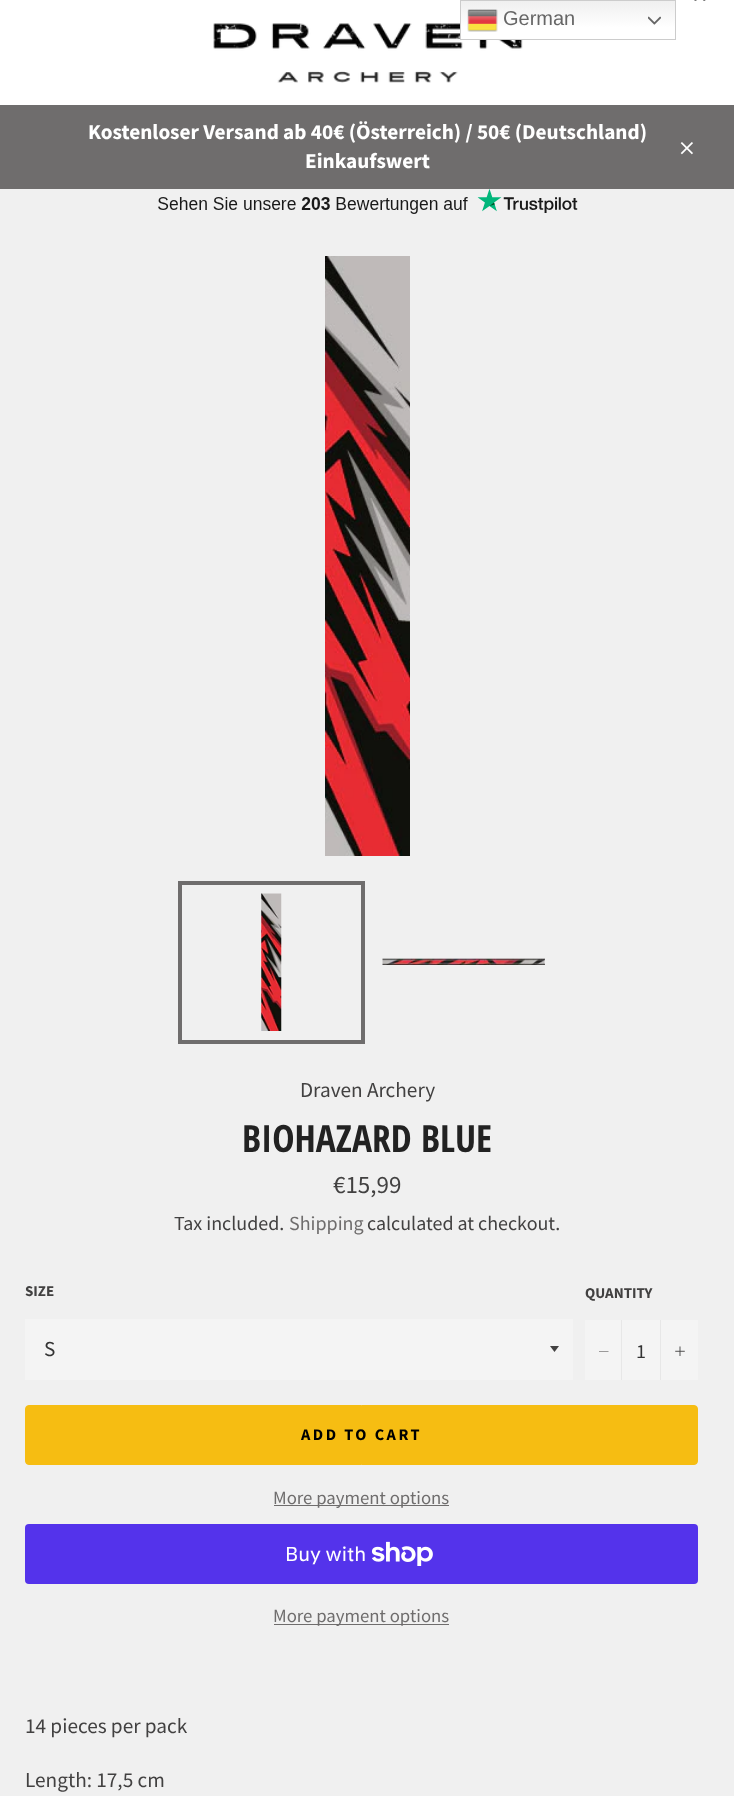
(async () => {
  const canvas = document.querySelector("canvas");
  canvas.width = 734;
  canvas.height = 1796;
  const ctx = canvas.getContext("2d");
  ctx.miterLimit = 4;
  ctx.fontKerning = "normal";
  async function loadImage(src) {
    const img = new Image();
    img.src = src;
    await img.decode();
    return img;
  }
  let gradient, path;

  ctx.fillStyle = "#f0f0f0";
  ctx.fillRect(0, 0, 734, 1796);
  ctx.fillStyle = "#ffffff";
  ctx.fillRect(0, 0, 734, 105);
  ctx.drawImage(await loadImage("img/4.png"), 213, 23, 310, 60);
  gradient = ctx.createLinearGradient(568, 0, 568, 40);
  gradient.addColorStop(0, "#efefef");
  gradient.addColorStop(0.7, "#ffffff");
  ctx.fillStyle = gradient;
  ctx.fillRect(461, 1, 214, 38);
  ctx.strokeStyle = "#cccccc";
  ctx.strokeRect(460.5, 0.5, 215, 39);
  ctx.drawImage(await loadImage("img/1.png"), 467, 9, 31, 23);
  ctx.drawImage(await loadImage("img/2.png"), 648, 16, 13, 9);
  ctx.drawImage(await loadImage("img/3.png"), 694, 0, 12, 1);
  ctx.fillStyle = "#6f6d6d";
  ctx.fillRect(0, 105, 734, 84);
  ctx.drawImage(await loadImage("img/5.png"), 680, 142, 13, 13);
  ctx.drawImage(await loadImage("img/6.png"), 158, 189, 420, 25);
  ctx.drawImage(await loadImage("img/7.png"), 325, 256, 85, 600);
  ctx.drawImage(await loadImage("img/8.png"), 261, 893, 21, 138);
  ctx.strokeStyle = "#6f6d6d";
  ctx.lineWidth = 4;
  ctx.strokeRect(180, 883, 183, 159);
  ctx.drawImage(await loadImage("img/9.png"), 382, 958, 163, 7);
  ctx.fillStyle = "#f4f4f4";
  ctx.fillRect(25, 1319, 548, 61);
  ctx.fillStyle = "#424141";
  path = new Path2D("M550 1346L554.5 1352L559 1346Z");
  ctx.fill(path);
  ctx.fillStyle = "#f4f4f4";
  ctx.fillRect(585, 1320, 113, 60);
  ctx.fillStyle = "#e7e7e7";
  ctx.fillRect(621, 1320, 1, 60);
  ctx.fillStyle = "#424141";
  path = new Path2D("M608.5 1351V1351.5H599V1351Z");
  ctx.fill(path, "evenodd");
  ctx.fillStyle = "#e7e7e7";
  ctx.fillRect(660, 1320, 1, 60);
  ctx.drawImage(await loadImage("img/10.png"), 675, 1346, 10, 10);
  ctx.fillStyle = "#f6bd12";
  ctx.beginPath();
  ctx.roundRect(25.5, 1405.5, 672, 59, 3.5);
  ctx.fill();
  ctx.strokeStyle = "#f6bd12";
  ctx.lineWidth = 1;
  ctx.stroke();
  ctx.fillStyle = "#6f6d6d";
  ctx.fillRect(274, 1505, 175, 1);
  ctx.fillStyle = "#5433eb";
  ctx.beginPath();
  ctx.roundRect(25, 1524, 673, 60, 4);
  ctx.fill();
  ctx.drawImage(await loadImage("img/11.png"), 371, 1541, 62, 25);
  ctx.fillStyle = "#6f6d6d";
  ctx.fillRect(274, 1624, 175, 1);
  ctx.font = "20px Liberation Sans";
  ctx.fillStyle = "#666666";
  ctx.fillText("German", 503, 25);
  ctx.font = "bold 21.25px Source Sans Pro";
  ctx.fillStyle = "#ffffff";
  ctx.fillText("Kostenloser Versand ab 40€ (Österreich) / 50€ (Deutschland)", 88, 139);
  ctx.fillText("Einkaufswert", 305, 168);
  ctx.font = "21.25px Source Sans Pro";
  ctx.fillStyle = "#424141";
  ctx.fillText("Draven Archery", 300, 1097);
  ctx.font = "bold 37.5px Open Sans Condensed";
  ctx.fillStyle = "#222222";
  ctx.fillText("BIOHAZARD BLUE", 242, 1152);
  ctx.font = "25px Source Sans Pro";
  ctx.fillStyle = "#424141";
  ctx.fillText("€15,99", 333, 1193);
  ctx.font = "20px Source Sans Pro";
  ctx.fillText("Tax included.", 174, 1230);
  ctx.fillStyle = "#6f6d6d";
  ctx.fillText("Shipping", 289, 1230);
  ctx.fillStyle = "#424141";
  ctx.fillText("calculated at checkout.", 367, 1230);
  ctx.font = "bold 15px Source Sans Pro";
  ctx.fillText("SIZE", 25, 1296);
  ctx.font = "21.25px Source Sans Pro";
  ctx.fillStyle = "#333333";
  ctx.fillText("S", 44, 1356);
  ctx.font = "bold 15px Source Sans Pro";
  ctx.fillStyle = "#424141";
  ctx.fillText("QUANTITY", 585, 1298);
  ctx.font = "20px Source Sans Pro";
  ctx.fillStyle = "#333333";
  ctx.fillText("1", 636, 1358);
  ctx.letterSpacing = "2.5px";
  ctx.font = "bold 16.25px Source Sans Pro";
  ctx.fillStyle = "#000000";
  ctx.fillText("ADD TO CART", 301, 1440);
  ctx.letterSpacing = "0px";
  ctx.font = "18.75px Source Sans Pro";
  ctx.fillStyle = "#6f6d6d";
  ctx.fillText("More payment options", 273, 1504);
  ctx.font = "20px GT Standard";
  ctx.fillStyle = "#ffffff";
  ctx.fillText("Buy with", 285, 1561);
  ctx.font = "18.75px Source Sans Pro";
  ctx.fillStyle = "#6f6d6d";
  ctx.fillText("More payment options", 273, 1622);
  ctx.font = "21.25px Source Sans Pro";
  ctx.fillStyle = "#424141";
  ctx.fillText("14 pieces per pack", 25, 1733);
  ctx.fillText("Length: 17,5 cm", 25, 1787);
})();
